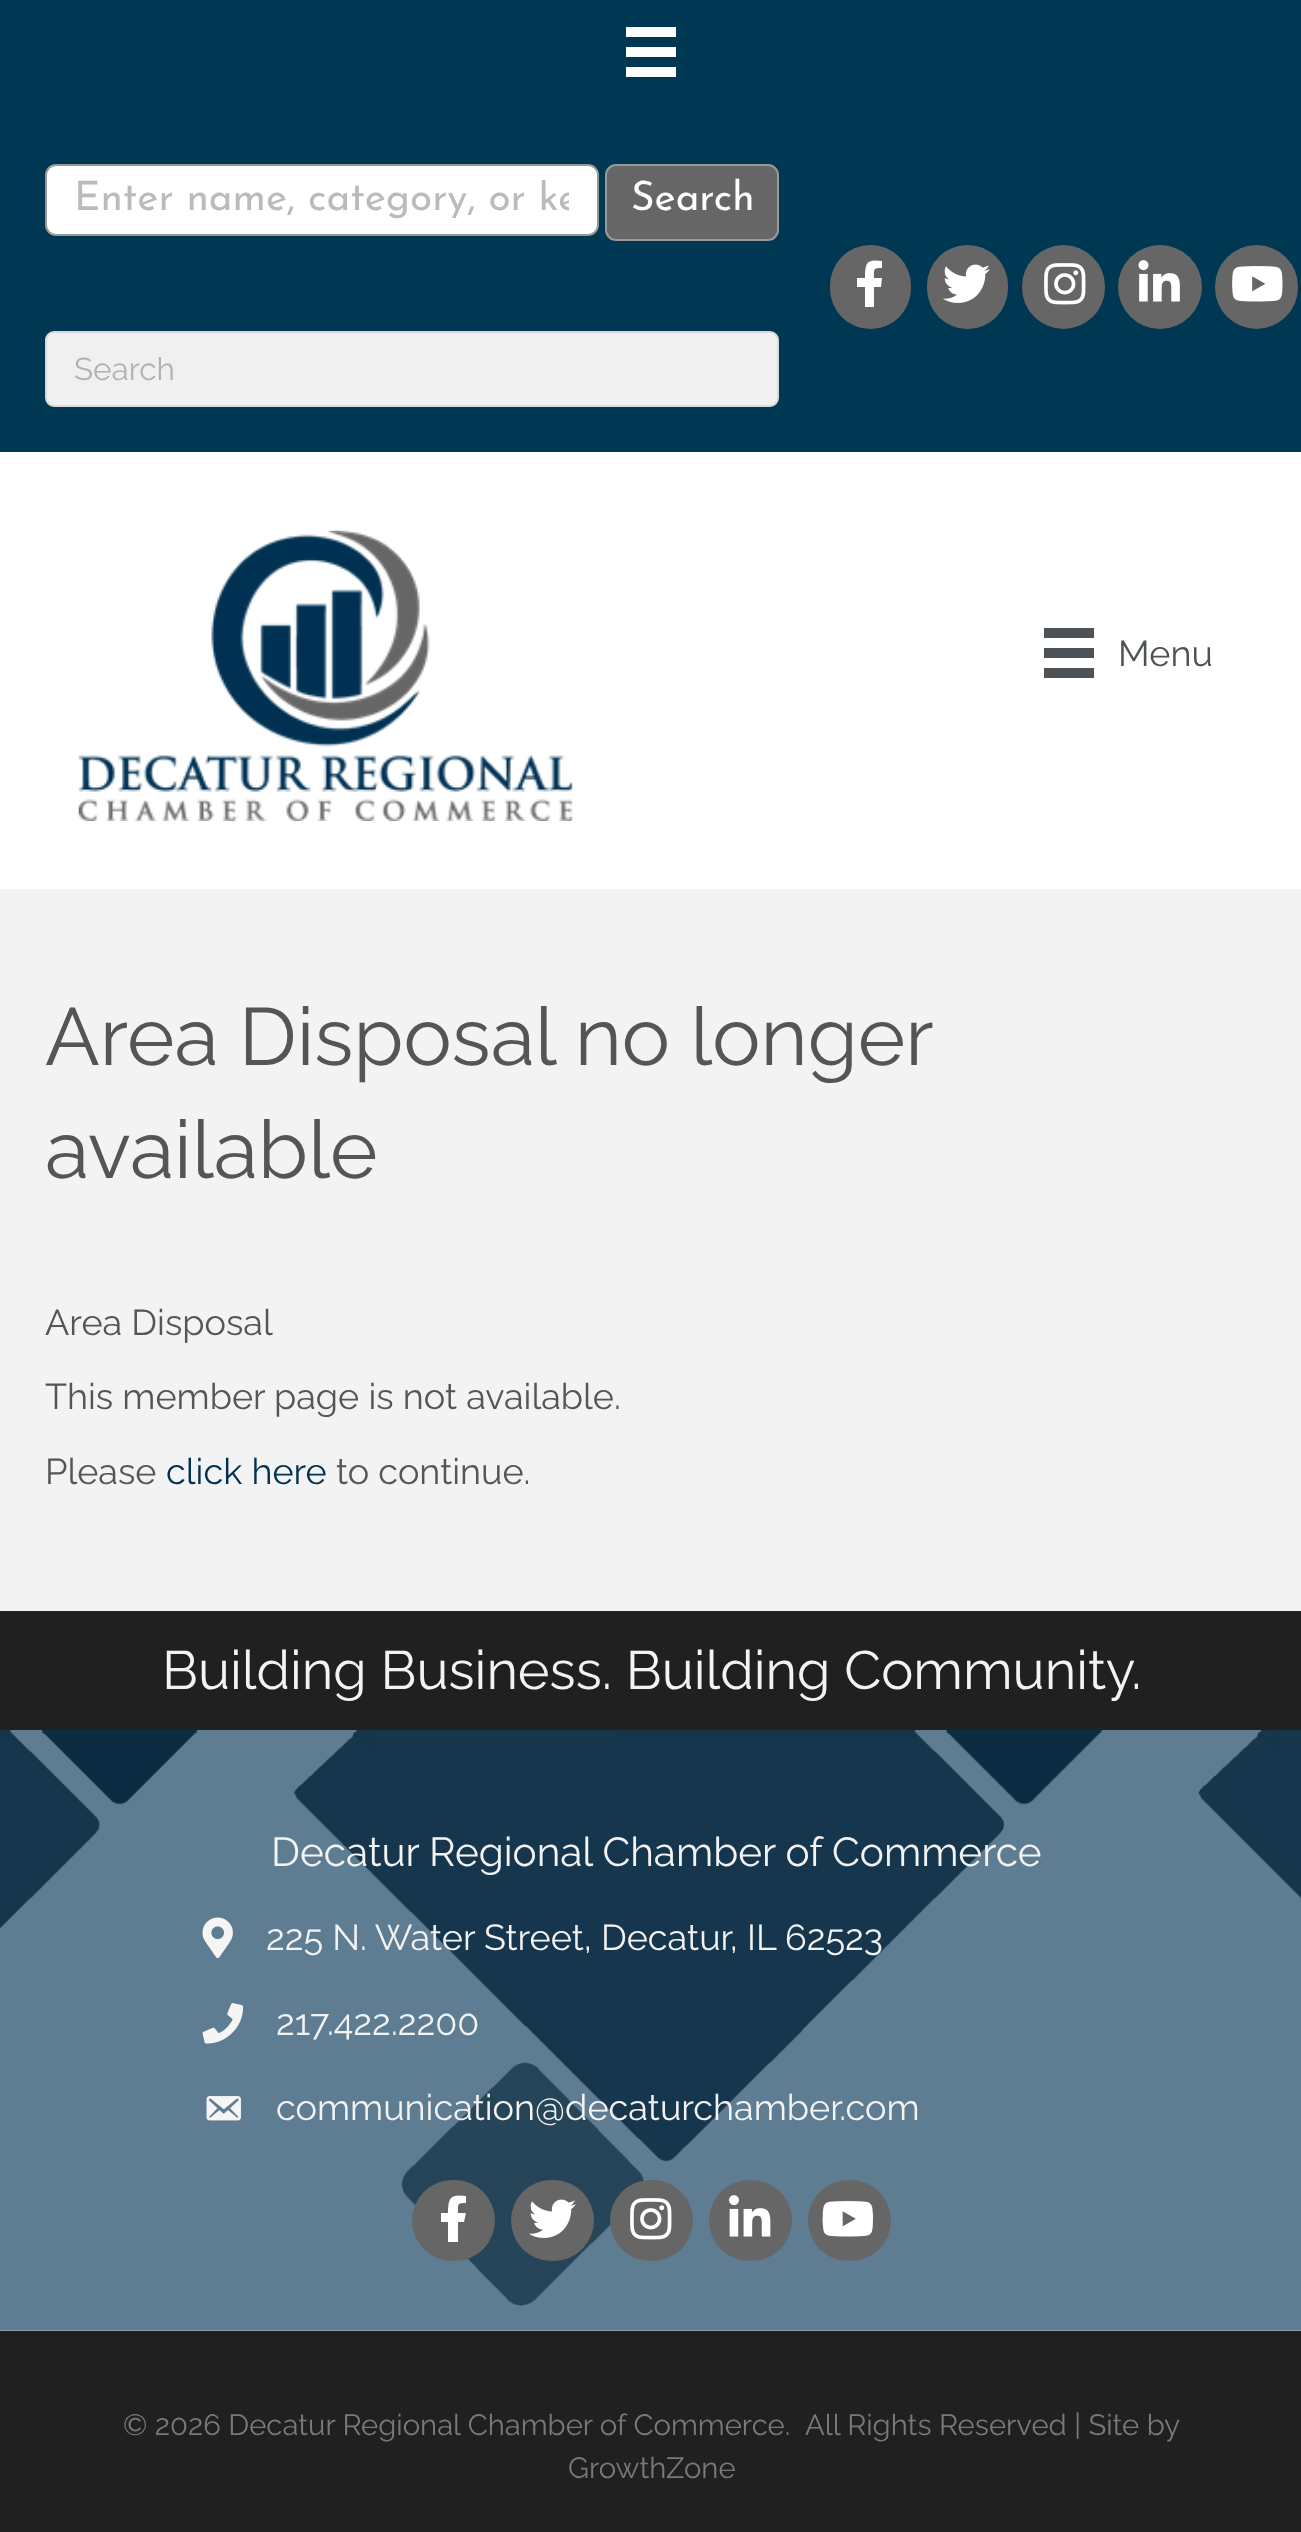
(async () => {
  const canvas = document.querySelector("canvas");
  canvas.width = 1301;
  canvas.height = 2532;
  const ctx = canvas.getContext("2d");
  ctx.miterLimit = 4;
  ctx.fontKerning = "normal";
  async function loadImage(src) {
    const img = new Image();
    img.src = src;
    await img.decode();
    return img;
  }
  let path;

  ctx.fillStyle = "#ffffff";
  ctx.fillRect(0, 0, 1301, 2532);
  for (const [x, y, w, h, color] of [
    [0, 0, 1301, 452, "#003752"],
    [626, 27, 50, 10, "#ffffff"],
    [626, 47, 50, 10, "#ffffff"],
    [626, 67, 50, 10, "#ffffff"],
  ]) {
    ctx.fillStyle = color;
    ctx.fillRect(x, y, w, h);
  }
  ctx.beginPath();
  ctx.roundRect(46, 165, 552, 70, 10);
  ctx.fill();
  ctx.strokeStyle = "#999999";
  ctx.lineWidth = 2;
  ctx.stroke();
  ctx.fillStyle = "#666666";
  ctx.beginPath();
  ctx.roundRect(606, 165, 172, 75, 10);
  ctx.fill();
  ctx.stroke();
  ctx.fillStyle = "#f0f0f0";
  ctx.beginPath();
  ctx.roundRect(46, 332, 732, 74, 8);
  ctx.fill();
  ctx.strokeStyle = "#dadada";
  ctx.stroke();
  ctx.fillStyle = "#666666";
  ctx.beginPath();
  ctx.roundRect(830, 245, 81, 84, 40.5);
  ctx.fill();
  ctx.fillStyle = "#ffffff";
  path = new Path2D("M881 287H874V307H865V287H857V278H865C865 262 867 259 882 261V268C873 268 874 269 874 278H882Z");
  ctx.fill(path);
  ctx.fillStyle = "#666666";
  ctx.beginPath();
  ctx.roundRect(927, 245, 81, 84, 40.5);
  ctx.fill();
  ctx.drawImage(await loadImage("img/1.png"), 943, 264, 47, 39);
  ctx.beginPath();
  ctx.roundRect(1022, 245, 83, 84, 41.5);
  ctx.fill();
  ctx.drawImage(await loadImage("img/2.png"), 1044, 263, 42, 42);
  ctx.beginPath();
  ctx.arc(1160, 287, 42, 0, Math.PI * 2);
  ctx.fill();
  ctx.drawImage(await loadImage("img/3.png"), 1138, 260, 42, 42);
  ctx.beginPath();
  ctx.roundRect(1215, 245, 83, 84, 41.5);
  ctx.fill();
  ctx.drawImage(await loadImage("img/4.png"), 1232, 266, 51, 36);
  ctx.drawImage(await loadImage("img/5.png"), 78, 530, 495, 291);
  for (const [x, y, w, h, color] of [
    [1044, 628, 50, 10, "#4c5256"],
    [1044, 648, 50, 10, "#4c5256"],
    [1044, 668, 50, 10, "#4c5256"],
    [0, 889, 1301, 722, "#f3f3f3"],
    [0, 1611, 1301, 119, "#202020"],
  ]) {
    ctx.fillStyle = color;
    ctx.fillRect(x, y, w, h);
  }
  ctx.drawImage(await loadImage("img/6.png"), 0, 1730, 1301, 601);
  ctx.drawImage(await loadImage("img/7.png"), 202, 1917, 31, 41);
  ctx.drawImage(await loadImage("img/8.png"), 202, 2003, 42, 41);
  ctx.drawImage(await loadImage("img/9.png"), 206, 2096, 35, 25);
  ctx.fillStyle = "#666666";
  ctx.beginPath();
  ctx.roundRect(412, 2180, 83, 81, 40.5);
  ctx.fill();
  ctx.fillStyle = "#ffffff";
  path = new Path2D("M464 2222H458V2242H448V2222H441V2213H448C448 2197 451 2194 466 2196V2203C457 2203 458 2204 458 2213H466Z");
  ctx.fill(path);
  ctx.fillStyle = "#666666";
  ctx.beginPath();
  ctx.roundRect(511, 2180, 83, 81, 40.5);
  ctx.fill();
  ctx.drawImage(await loadImage("img/1.png"), 529, 2199, 47, 39);
  ctx.beginPath();
  ctx.roundRect(610, 2180, 83, 81, 40.5);
  ctx.fill();
  ctx.drawImage(await loadImage("img/2.png"), 630, 2198, 42, 42);
  ctx.beginPath();
  ctx.roundRect(709, 2180, 83, 81, 40.5);
  ctx.fill();
  ctx.drawImage(await loadImage("img/10.png"), 729, 2195, 42, 42);
  ctx.beginPath();
  ctx.roundRect(808, 2180, 83, 81, 40.5);
  ctx.fill();
  ctx.drawImage(await loadImage("img/11.png"), 822, 2201, 51, 36);
  ctx.fillStyle = "#202020";
  ctx.fillRect(0, 2331, 1301, 201);
  ctx.save();
  ctx.beginPath();
  ctx.rect(74, 180, 495, 41);
  ctx.clip();
  ctx.font = "40.5px Josefin Sans";
  ctx.fillStyle = "#bbbbbb";
  ctx.fillText("Enter name, category, or ke", 74, 210);
  ctx.restore();
  ctx.font = "40.5px Josefin Sans";
  ctx.fillStyle = "#ffffff";
  ctx.fillText("Search", 631, 210);
  ctx.font = "31.5px Raleway";
  ctx.fillStyle = "#b2b2b2";
  ctx.fillText("Search", 74, 380);
  ctx.font = "36px Raleway";
  ctx.fillStyle = "#4c5256";
  ctx.fillText("Menu", 1118, 666);
  ctx.wordSpacing = "-0.5px";
  ctx.font = "81px Raleway";
  ctx.fillStyle = "#555555";
  ctx.fillText("Area Disposal no longer", 45, 1065);
  ctx.wordSpacing = "0px";
  ctx.fillText("available", 45, 1178);
  ctx.font = "36px Raleway";
  for (const [text, x, y] of [
    ["Area Disposal", 45, 1335],
    ["This member page is not available.", 45, 1409],
    ["Please", 45, 1484],
  ]) {
    ctx.fillText(text, x, y);
  }
  ctx.fillStyle = "#003152";
  ctx.fillText("click here", 166, 1484);
  ctx.fillStyle = "#555555";
  ctx.fillText("to continue.", 336, 1484);
  ctx.font = "54px Raleway";
  ctx.fillStyle = "#f3f3f3";
  ctx.fillText("Building Business. Building Community.", 162, 1689);
  ctx.font = "40.5px Raleway";
  ctx.fillText("Decatur Regional Chamber of Commerce", 271, 1866);
  ctx.font = "36px Raleway";
  for (const [text, x, y] of [
    ["225 N. Water Street, Decatur, IL 62523", 266, 1950],
    ["217.422.2200", 276, 2035],
    ["communication@decaturchamber.com", 276, 2120],
  ]) {
    ctx.fillText(text, x, y);
  }
  ctx.font = "29.25px Raleway";
  ctx.fillStyle = "#797979";
  for (const [text, x, y] of [
    ["© 2026 Decatur Regional Chamber of Commerce.", 123, 2435],
    ["All Rights Reserved | Site by", 805, 2435],
    ["GrowthZone", 568, 2478],
  ]) {
    ctx.fillText(text, x, y);
  }
})();
